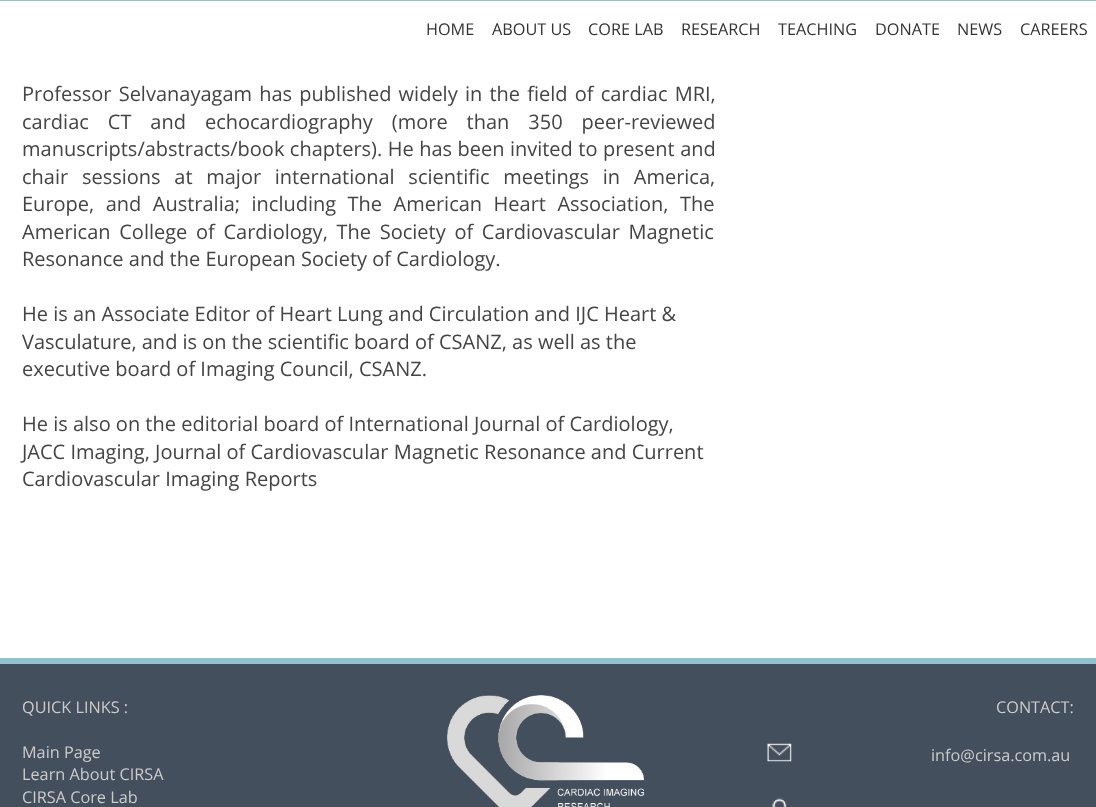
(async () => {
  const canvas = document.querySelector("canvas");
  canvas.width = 1096;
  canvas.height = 807;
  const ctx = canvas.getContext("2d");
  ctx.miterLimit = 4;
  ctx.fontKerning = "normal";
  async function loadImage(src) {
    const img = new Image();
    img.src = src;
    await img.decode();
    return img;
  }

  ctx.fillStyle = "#ffffff";
  ctx.fillRect(0, 0, 1096, 807);
  for (const [x, y, w, h, color] of [
    [0, 0, 1096, 1, "#92c0cc"],
    [0, 664, 1096, 143, "#444f5d"],
    [0, 658, 1096, 6, "#92c0cc"],
  ]) {
    ctx.fillStyle = color;
    ctx.fillRect(x, y, w, h);
  }
  ctx.drawImage(await loadImage("img/1.png"), 447, 695, 198, 112);
  ctx.drawImage(await loadImage("img/2.png"), 767, 743, 25, 19);
  ctx.drawImage(await loadImage("img/3.png"), 772, 798, 15, 9);
  ctx.font = "16.25px Open Sans";
  ctx.fillStyle = "#333333";
  for (const [text, x, y] of [
    ["HOME", 426, 35],
    ["ABOUT US", 492, 35],
    ["CORE LAB", 588, 35],
    ["RESEARCH", 681, 35],
    ["TEACHING", 778, 35],
    ["DONATE", 875, 35],
    ["NEWS", 957, 35],
    ["CAREERS", 1020, 35],
  ]) {
    ctx.fillText(text, x, y);
  }
  ctx.wordSpacing = "2px";
  ctx.font = "20px Open Sans";
  ctx.fillStyle = "#444444";
  ctx.fillText("Professor Selvanayagam has published widely in the field of cardiac MRI,", 22, 101);
  ctx.wordSpacing = "13.75px";
  ctx.fillText("cardiac CT and echocardiography (more than 350 peer-reviewed", 22, 129);
  ctx.wordSpacing = "0.25px";
  ctx.fillText("manuscripts/abstracts/book chapters). He has been invited to present and", 22, 156);
  ctx.wordSpacing = "8.5px";
  ctx.fillText("chair sessions at major international scientific meetings in America,", 22, 184);
  ctx.wordSpacing = "6.25px";
  ctx.fillText("Europe, and Australia; including The American Heart Association, The", 22, 211);
  ctx.wordSpacing = "3.5px";
  ctx.fillText("American College of Cardiology, The Society of Cardiovascular Magnetic", 22, 239);
  ctx.wordSpacing = "0px";
  for (const [text, x, y] of [
    ["Resonance and the European Society of Cardiology.", 22, 266],
    ["He is an Associate Editor of Heart Lung and Circulation and IJC Heart &", 22, 321],
    ["Vasculature, and is on the scientific board of CSANZ, as well as the", 22, 349],
    ["executive board of Imaging Council, CSANZ.", 22, 376],
    ["He is also on the editorial board of International Journal of Cardiology,", 22, 431],
    ["JACC Imaging, Journal of Cardiovascular Magnetic Resonance and Current", 22, 459],
    ["Cardiovascular Imaging Reports", 22, 486],
  ]) {
    ctx.fillText(text, x, y);
  }
  ctx.font = "16.25px Open Sans";
  ctx.fillStyle = "#cccccc";
  for (const [text, x, y] of [
    ["QUICK LINKS :", 22, 713],
    ["Main Page", 22, 758],
    ["Learn About CIRSA", 22, 780],
    ["CIRSA Core Lab", 22, 803],
    ["CONTACT:", 996, 713],
    ["info@cirsa.com.au", 931, 761],
  ]) {
    ctx.fillText(text, x, y);
  }
})();
